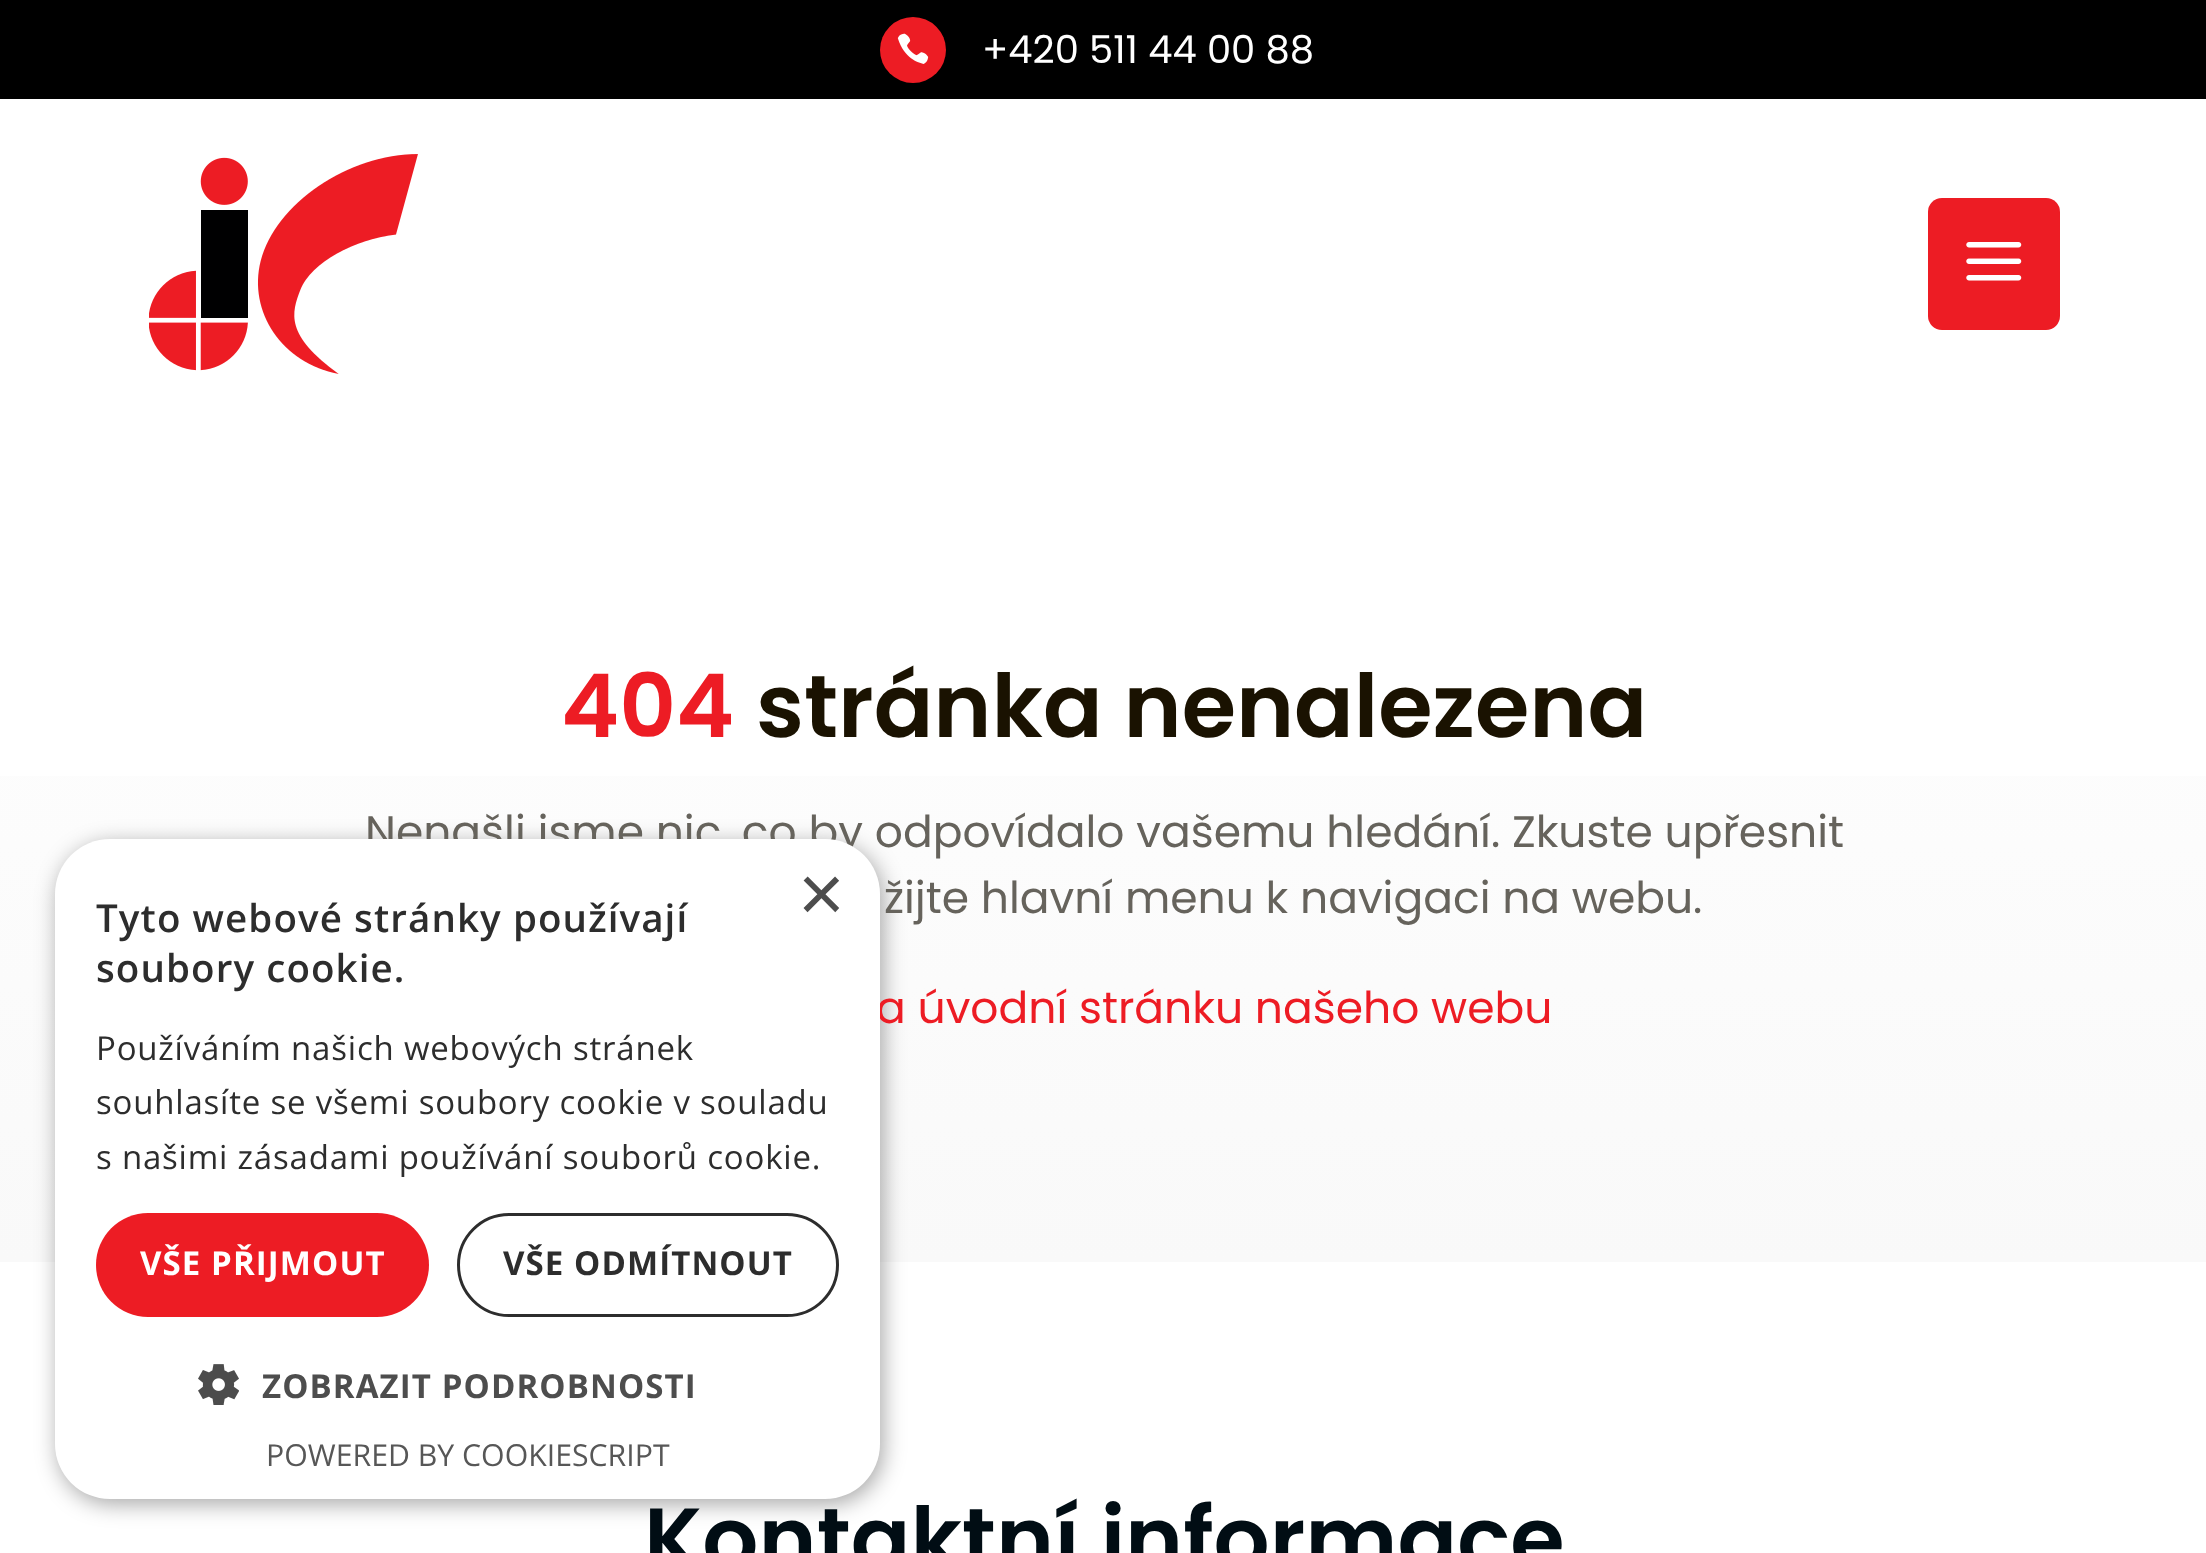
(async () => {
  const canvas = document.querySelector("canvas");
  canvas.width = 2206;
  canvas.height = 1553;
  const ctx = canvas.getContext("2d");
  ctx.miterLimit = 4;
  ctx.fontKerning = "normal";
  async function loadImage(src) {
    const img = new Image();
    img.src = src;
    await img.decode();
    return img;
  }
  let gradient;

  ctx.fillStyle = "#ffffff";
  ctx.fillRect(0, 0, 2206, 1553);
  ctx.fillStyle = "#000000";
  ctx.fillRect(0, 0, 2206, 99);
  ctx.fillStyle = "#ed1c24";
  ctx.beginPath();
  ctx.arc(913, 50, 33, 0, Math.PI * 2);
  ctx.fill();
  ctx.drawImage(await loadImage("img/1.png"), 897, 33, 32, 31);
  ctx.drawImage(await loadImage("img/2.png"), 149, 154, 269, 220);
  ctx.beginPath();
  ctx.roundRect(1928, 198, 132, 132, 14);
  ctx.fill();
  ctx.drawImage(await loadImage("img/3.png"), 1966, 242, 56, 39);
  gradient = ctx.createLinearGradient(1104, 429, 1104, 1262);
  gradient.addColorStop(0, "#ffffff");
  gradient.addColorStop(1, "#f9f9f9");
  ctx.fillStyle = gradient;
  ctx.fillRect(0, 776, 2206, 486);
  ctx.fillStyle = "rgba(0, 0, 0, 0.35)";
  ctx.filter = "blur(11px)";
  ctx.beginPath();
  ctx.roundRect(58, 844, 825, 660, 55);
  ctx.fill();
  ctx.filter = "none";
  ctx.font = "38.5px Poppins";
  ctx.fillStyle = "#ffffff";
  ctx.fillText("+420 511 44 00 88", 982, 63);
  ctx.font = "600 88px Poppins";
  ctx.fillStyle = "#ed1c24";
  ctx.fillText("404", 561, 737);
  ctx.fillStyle = "#1a1201";
  ctx.fillText("stránka nenalezena", 756, 737);
  ctx.font = "44px Poppins";
  ctx.fillStyle = "#66635c";
  ctx.fillText("Nenašli jsme nic, co by odpovídalo vašemu hledání. Zkuste upřesnit", 365, 847);
  ctx.fillText("žijte hlavní menu k navigaci na webu.", 884, 913);
  ctx.fillStyle = "#ed1c24";
  ctx.fillText("a úvodní stránku našeho webu", 876, 1023);
  ctx.font = "600 88px Poppins";
  ctx.fillStyle = "#010d14";
  ctx.fillText("Kontaktní informace", 644, 1570);
  ctx.fillStyle = "#ffffff";
  ctx.beginPath();
  ctx.roundRect(55, 839, 825, 660, 55);
  ctx.fill();
  ctx.font = "80px Liberation Sans";
  ctx.fillStyle = "#4d4d4d";
  ctx.fillText("×", 798, 921);
  ctx.letterSpacing = "1.1px";
  ctx.font = "600 38.5px Open Sans";
  ctx.fillStyle = "#2d2d2d";
  ctx.fillText("Tyto webové stránky používají", 96, 932);
  ctx.fillText("soubory cookie.", 96, 982);
  ctx.letterSpacing = "0.8px";
  ctx.font = "33px Open Sans";
  for (const [text, x, y] of [
    ["Používáním našich webových stránek", 96, 1060],
    ["souhlasíte se všemi soubory cookie v souladu", 96, 1114],
    ["s našimi zásadami používání souborů cookie.", 96, 1169],
  ]) {
    ctx.fillText(text, x, y);
  }
  ctx.fillStyle = "#ed1c24";
  ctx.beginPath();
  ctx.roundRect(96, 1213, 333, 104, 52);
  ctx.fill();
  ctx.letterSpacing = "1.1px";
  ctx.font = "bold 33px Open Sans";
  ctx.fillStyle = "#ffffff";
  ctx.fillText("VŠE PŘIJMOUT", 140, 1275);
  ctx.beginPath();
  ctx.roundRect(458.5, 1214.5, 379, 101, 50.5);
  ctx.strokeStyle = "#2d2d2d";
  ctx.lineWidth = 3;
  ctx.stroke();
  ctx.fillStyle = "#2d2d2d";
  ctx.fillText("VŠE ODMÍTNOUT", 503, 1275);
  ctx.drawImage(await loadImage("img/4.png"), 198, 1364, 41, 41);
  ctx.fillStyle = "#4d4d4d";
  ctx.fillText("ZOBRAZIT PODROBNOSTI", 262, 1398);
  ctx.letterSpacing = "0px";
  ctx.font = "30.25px Open Sans";
  ctx.fillStyle = "#575757";
  ctx.fillText("POWERED BY COOKIESCRIPT", 266, 1466);
})();
